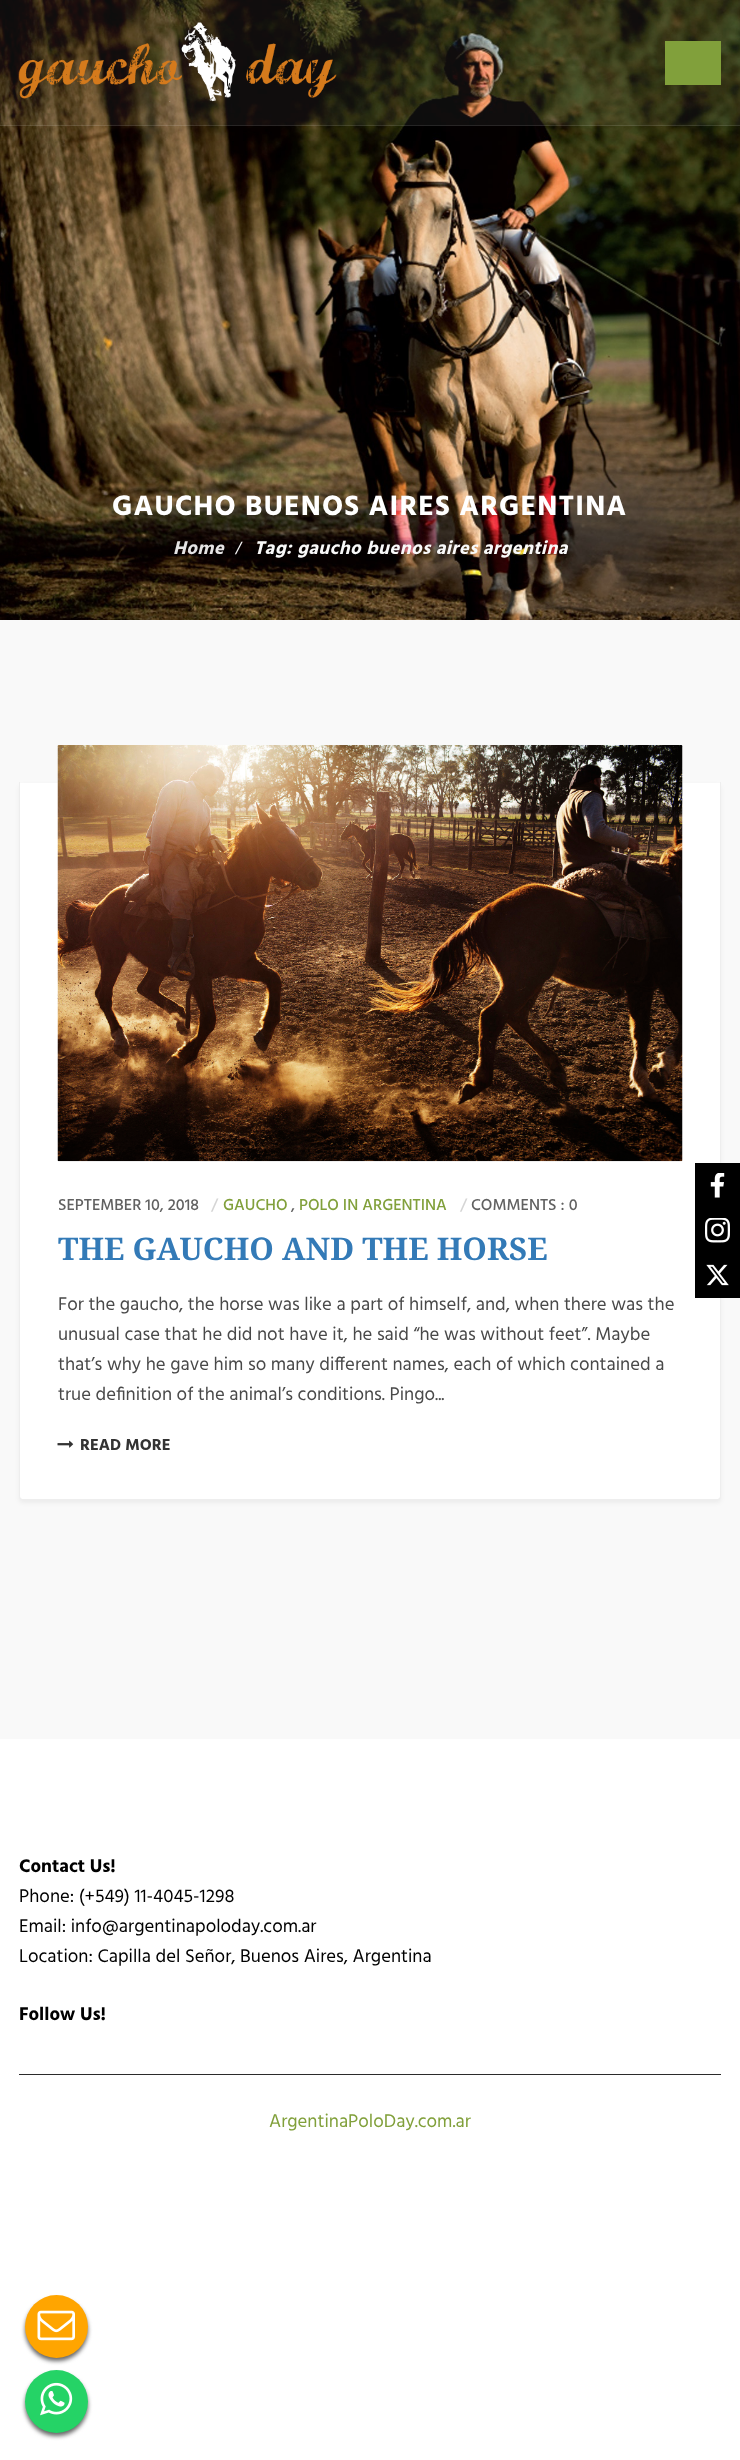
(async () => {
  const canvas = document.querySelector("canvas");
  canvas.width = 740;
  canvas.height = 2460;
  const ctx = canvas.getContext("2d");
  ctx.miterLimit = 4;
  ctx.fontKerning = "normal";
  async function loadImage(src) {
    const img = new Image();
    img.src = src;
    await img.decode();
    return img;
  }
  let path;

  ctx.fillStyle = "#ffffff";
  ctx.fillRect(0, 0, 740, 2460);
  ctx.fillStyle = "#f9f9f9";
  ctx.fillRect(0, 620, 740, 1119);
  ctx.drawImage(await loadImage("img/2.png"), 0, 0, 740, 620);
  ctx.fillStyle = "rgba(255, 255, 255, 0.05)";
  ctx.fillRect(0, 0, 740, 126);
  ctx.fillStyle = "rgba(255, 255, 255, 0.1)";
  ctx.fillRect(0, 125, 740, 1);
  ctx.drawImage(await loadImage("img/1.png"), 18, 22, 319, 80);
  ctx.fillStyle = "#81a03b";
  ctx.fillRect(665, 41, 56, 44);
  ctx.fillStyle = "rgba(0, 0, 0, 0.05)";
  ctx.filter = "blur(2px)";
  ctx.beginPath();
  ctx.roundRect(19, 785, 702, 718, 4);
  ctx.fill();
  ctx.filter = "none";
  ctx.fillStyle = "#ffffff";
  ctx.beginPath();
  ctx.roundRect(20, 783, 700, 716, [0, 0, 2.5, 2.5]);
  ctx.fill();
  ctx.fillStyle = "#eeeeee";
  path = new Path2D("M19 782H721V1496C721 1498 720 1500 718 1500H22C20 1500 19 1498 19 1496ZM20 782H720V1496C720 1498 719 1499 718 1499H22C21 1499 20 1498 20 1496Z");
  ctx.fill(path, "evenodd");
  ctx.drawImage(await loadImage("img/3.png"), 57, 745, 626, 417);
  ctx.drawImage(await loadImage("img/4.png"), 57, 1440, 17, 8);
  ctx.fillStyle = "#2b2b2b";
  ctx.fillRect(19, 2074, 702, 1);
  ctx.fillStyle = "#000000";
  ctx.fillRect(695, 1163, 45, 135);
  ctx.drawImage(await loadImage("img/5.png"), 710, 1173, 15, 25);
  ctx.drawImage(await loadImage("img/6.png"), 705, 1218, 25, 25);
  ctx.drawImage(await loadImage("img/7.png"), 706, 1264, 23, 22);
  ctx.fillStyle = "#666666";
  ctx.filter = "blur(2px)";
  ctx.beginPath();
  ctx.roundRect(25, 2299, 63, 62, 31);
  ctx.fill();
  ctx.filter = "none";
  ctx.fillStyle = "#ffa500";
  ctx.beginPath();
  ctx.arc(56.5, 2326.5, 31.5, 0, Math.PI * 2);
  ctx.fill();
  ctx.drawImage(await loadImage("img/8.png"), 37, 2310, 38, 31);
  ctx.fillStyle = "#666666";
  ctx.filter = "blur(2px)";
  ctx.beginPath();
  ctx.roundRect(25, 2374, 63, 62, 31);
  ctx.fill();
  ctx.filter = "none";
  ctx.fillStyle = "#25d366";
  ctx.beginPath();
  ctx.arc(56.5, 2401.5, 31.5, 0, Math.PI * 2);
  ctx.fill();
  ctx.drawImage(await loadImage("img/9.png"), 40, 2382, 33, 34);
  ctx.letterSpacing = "1.15px";
  ctx.font = "bold 28.75px Hind";
  ctx.fillStyle = "#ffffff";
  ctx.fillText("GAUCHO BUENOS AIRES ARGENTINA", 112, 515);
  ctx.letterSpacing = "0.4px";
  ctx.font = "italic bold 18.75px Hind";
  ctx.fillStyle = "#e5e4e4";
  ctx.fillText("Home", 173, 554);
  ctx.font = "italic bold 18.75px Liberation Serif";
  ctx.fillStyle = "#f9f9f9";
  ctx.fillText("/", 236, 554);
  ctx.font = "italic bold 18.75px Hind";
  ctx.fillText("Tag: gaucho buenos aires argentina", 254, 554);
  ctx.letterSpacing = "0px";
  ctx.font = "500 16.25px Hind";
  ctx.fillStyle = "#616161";
  ctx.fillText("SEPTEMBER 10, 2018", 58, 1210);
  ctx.fillStyle = "#d5d5d5";
  ctx.fillText("/", 211, 1210);
  ctx.fillStyle = "#81a03b";
  ctx.fillText("GAUCHO", 223, 1210);
  ctx.fillStyle = "#616161";
  ctx.fillText(",", 291, 1210);
  ctx.fillStyle = "#81a03b";
  ctx.fillText("POLO IN ARGENTINA", 299, 1210);
  ctx.fillStyle = "#d5d5d5";
  ctx.fillText("/", 460, 1210);
  ctx.fillStyle = "#616161";
  ctx.fillText("COMMENTS : 0", 471, 1210);
  ctx.font = "bold 31.25px Droid Serif";
  ctx.fillStyle = "#337ab7";
  ctx.fillText("THE GAUCHO AND THE HORSE", 58, 1260);
  ctx.font = "18.75px Hind";
  ctx.fillStyle = "#494949";
  for (const [text, x, y] of [
    ["For the gaucho, the horse was like a part of himself, and, when there was the", 58, 1310],
    ["unusual case that he did not have it, he said “he was without feet”. Maybe", 58, 1340],
    ["that’s why he gave him so many different names, each of which contained a", 58, 1370],
    ["true definition of the animal’s conditions. Pingo...", 58, 1400],
  ]) {
    ctx.fillText(text, x, y);
  }
  ctx.font = "bold 16.25px Hind";
  ctx.fillStyle = "#333333";
  ctx.fillText("READ MORE", 80, 1450);
  ctx.font = "bold 18.75px Hind";
  ctx.fillStyle = "#000000";
  ctx.fillText("Contact Us!", 19, 1872);
  ctx.font = "18.75px Hind";
  for (const [text, x, y] of [
    ["Phone: (+549) 11-4045-1298", 19, 1902],
    ["Email: info@argentinapoloday.com.ar", 19, 1932],
    ["Location: Capilla del Señor, Buenos Aires, Argentina", 19, 1962],
  ]) {
    ctx.fillText(text, x, y);
  }
  ctx.font = "bold 18.75px Hind";
  ctx.fillText("Follow Us!", 19, 2020);
  ctx.font = "18.75px Hind";
  ctx.fillStyle = "#81a03b";
  ctx.fillText("ArgentinaPoloDay.com.ar", 269, 2127);
})();
